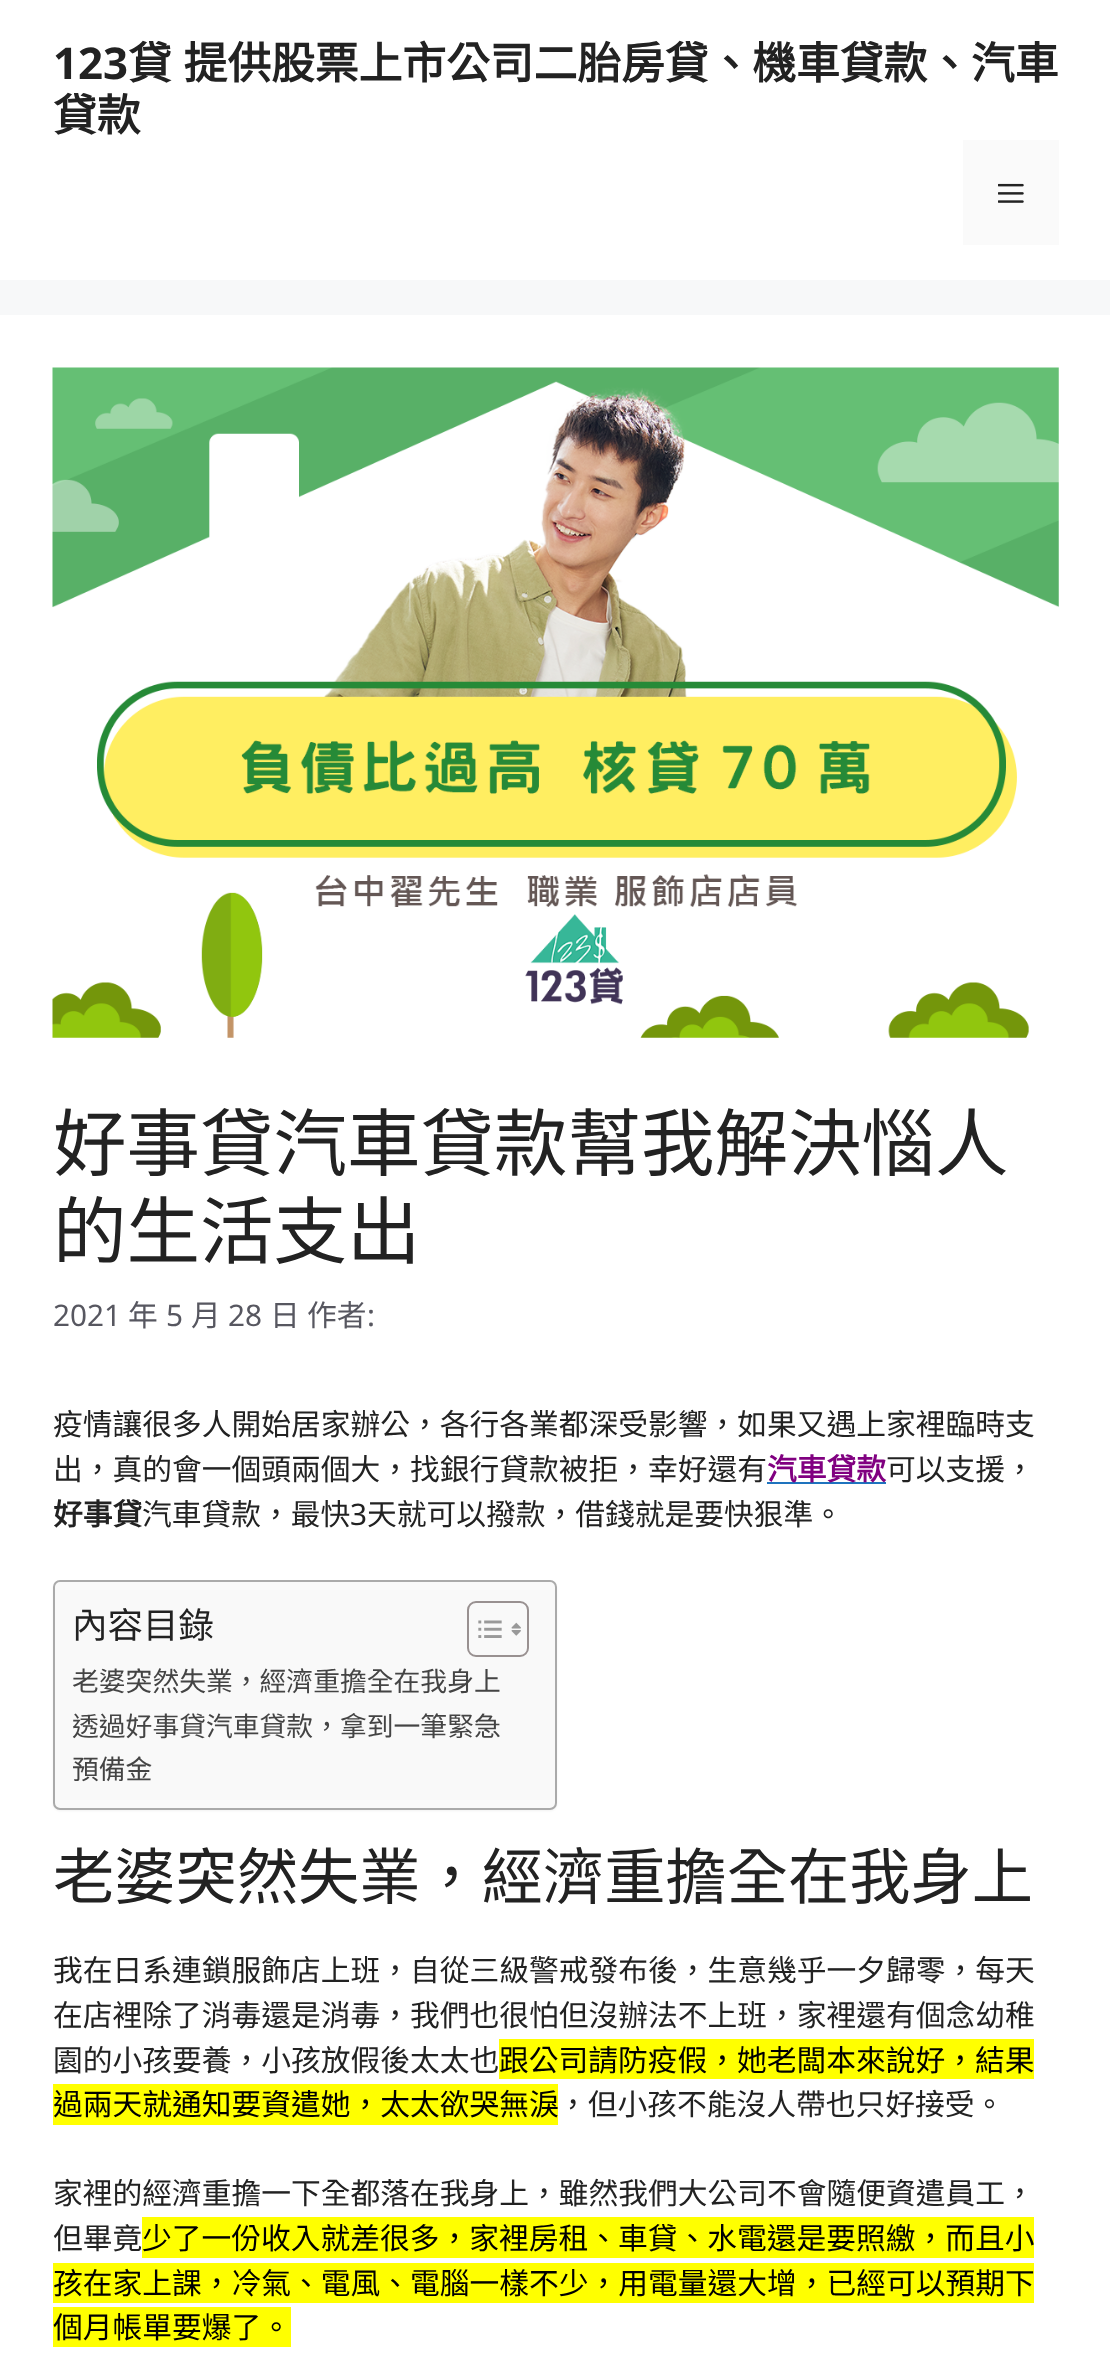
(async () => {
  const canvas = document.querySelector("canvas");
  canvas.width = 1110;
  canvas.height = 2379;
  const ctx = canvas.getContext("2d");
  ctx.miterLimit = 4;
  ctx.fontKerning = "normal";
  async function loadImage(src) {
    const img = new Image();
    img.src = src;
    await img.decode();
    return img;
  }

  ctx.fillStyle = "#f7f8f9";
  ctx.fillRect(0, 0, 1110, 2379);
  ctx.fillStyle = "#ffffff";
  ctx.fillRect(0, 0, 1110, 280);
  ctx.fillStyle = "#fafafa";
  ctx.fillRect(963, 140, 96, 105);
  ctx.drawImage(await loadImage("img/1.png"), 998, 183, 26, 20);
  ctx.fillStyle = "#ffffff";
  ctx.fillRect(0, 315, 1110, 2064);
  ctx.drawImage(await loadImage("img/2.png"), 52, 367, 1007, 671);
  ctx.fillStyle = "#1e73be";
  ctx.fillRect(767, 1482, 119, 2);
  ctx.fillStyle = "rgba(0, 0, 0, 0.05)";
  ctx.filter = "blur(1px)";
  ctx.beginPath();
  ctx.roundRect(53, 1582, 504, 229, 7);
  ctx.fill();
  ctx.filter = "none";
  ctx.fillStyle = "#f9f9f9";
  ctx.beginPath();
  ctx.roundRect(54, 1581, 502, 228, 6);
  ctx.fill();
  ctx.strokeStyle = "#aaaaaa";
  ctx.lineWidth = 2;
  ctx.stroke();
  ctx.beginPath();
  ctx.roundRect(468, 1602, 60, 54, 8);
  ctx.strokeStyle = "#999191";
  ctx.stroke();
  ctx.drawImage(await loadImage("img/3.png"), 478, 1620, 24, 18);
  ctx.drawImage(await loadImage("img/4.png"), 511, 1622, 10, 14);
  for (const [x, y, w, h, color] of [
    [499, 2039, 535, 40, "#ffff00"],
    [53, 2084, 505, 41, "#ffff00"],
    [142, 2217, 892, 41, "#ffff00"],
    [53, 2263, 981, 40, "#ffff00"],
    [53, 2307, 238, 40, "#ffff00"],
  ]) {
    ctx.fillStyle = color;
    ctx.fillRect(x, y, w, h);
  }
  ctx.font = "bold 43.75px Noto Sans";
  ctx.fillStyle = "#222222";
  ctx.fillText("123", 53, 79);
  ctx.wordSpacing = "2px";
  ctx.font = "bold 43.75px Noto Sans CJK TC";
  ctx.fillText("貸 提供股票上市公司二胎房貸、機車貸款、汽車", 128, 79);
  ctx.wordSpacing = "0px";
  ctx.fillText("貸款", 53, 131);
  ctx.font = "73.5px Noto Sans CJK TC";
  ctx.fillText("好事貸汽車貸款幫我解決惱人", 53, 1170);
  ctx.fillText("的生活支出", 53, 1258);
  ctx.font = "29.75px Noto Sans";
  ctx.fillStyle = "#575760";
  ctx.fillText("2021", 53, 1326);
  ctx.font = "29.75px Noto Sans CJK TC";
  ctx.fillText("年", 128, 1326);
  ctx.font = "29.75px Noto Sans";
  ctx.fillText("5", 166, 1326);
  ctx.font = "29.75px Noto Sans CJK TC";
  ctx.fillText("月", 191, 1326);
  ctx.font = "29.75px Noto Sans";
  ctx.fillText("28", 228, 1326);
  ctx.font = "29.75px Noto Sans CJK TC";
  ctx.fillText("日", 270, 1326);
  ctx.fillText("作者", 307, 1326);
  ctx.font = "29.75px Noto Sans";
  ctx.fillText(":", 367, 1326);
  ctx.font = "29.75px Noto Sans CJK TC";
  ctx.fillStyle = "#222222";
  ctx.fillText("疫情讓很多人開始居家辦公，各行各業都深受影響，如果又遇上家裡臨時支", 53, 1435);
  ctx.fillText("出，真的會一個頭兩個大，找銀行貸款被拒，幸好還有", 53, 1480);
  ctx.font = "bold 29.75px Noto Sans CJK TC";
  ctx.fillStyle = "#800080";
  ctx.fillText("汽車貸款", 767, 1480);
  ctx.font = "29.75px Noto Sans CJK TC";
  ctx.fillStyle = "#222222";
  ctx.fillText("可以支援，", 886, 1480);
  ctx.font = "bold 29.75px Noto Sans CJK TC";
  ctx.fillText("好事貸", 53, 1525);
  ctx.font = "29.75px Noto Sans CJK TC";
  ctx.fillText("汽車貸款，最快", 142, 1525);
  ctx.font = "29.75px Noto Sans";
  ctx.fillText("3", 350, 1525);
  ctx.font = "29.75px Noto Sans CJK TC";
  ctx.fillText("天就可以撥款，借錢就是要快狠準。", 367, 1525);
  ctx.font = "35.5px Noto Sans CJK TC";
  ctx.fillText("內容目錄", 72, 1638);
  ctx.font = "26.8px Noto Sans CJK TC";
  ctx.fillStyle = "#444444";
  for (const [text, x, y] of [
    ["老婆突然失業，經濟重擔全在我身上", 72, 1691],
    ["透過好事貸汽車貸款，拿到一筆緊急", 72, 1736],
    ["預備金", 72, 1779],
  ]) {
    ctx.fillText(text, x, y);
  }
  ctx.font = "61.25px Noto Sans CJK TC";
  ctx.fillStyle = "#222222";
  ctx.fillText("老婆突然失業，經濟重擔全在我身上", 53, 1899);
  ctx.font = "29.75px Noto Sans CJK TC";
  for (const [text, x, y] of [
    ["我在日系連鎖服飾店上班，自從三級警戒發布後，生意幾乎一夕歸零，每天", 53, 1981],
    ["在店裡除了消毒還是消毒，我們也很怕但沒辦法不上班，家裡還有個念幼稚", 53, 2026],
    ["園的小孩要養，小孩放假後太太也", 53, 2071],
  ]) {
    ctx.fillText(text, x, y);
  }
  ctx.fillStyle = "#000000";
  ctx.fillText("跟公司請防疫假，她老闆本來說好，結果", 499, 2071);
  ctx.fillText("過兩天就通知要資遣她，太太欲哭無淚", 53, 2115);
  ctx.fillStyle = "#222222";
  for (const [text, x, y] of [
    ["，但小孩不能沒人帶也只好接受。", 558, 2115],
    ["家裡的經濟重擔一下全都落在我身上，雖然我們大公司不會隨便資遣員工，", 53, 2204],
    ["但畢竟", 53, 2249],
  ]) {
    ctx.fillText(text, x, y);
  }
  ctx.fillStyle = "#000000";
  for (const [text, x, y] of [
    ["少了一份收入就差很多，家裡房租、車貸、水電還是要照繳，而且小", 142, 2249],
    ["孩在家上課，冷氣、電風、電腦一樣不少，用電量還大增，已經可以預期下", 53, 2294],
    ["個月帳單要爆了。", 53, 2338],
  ]) {
    ctx.fillText(text, x, y);
  }
})();
